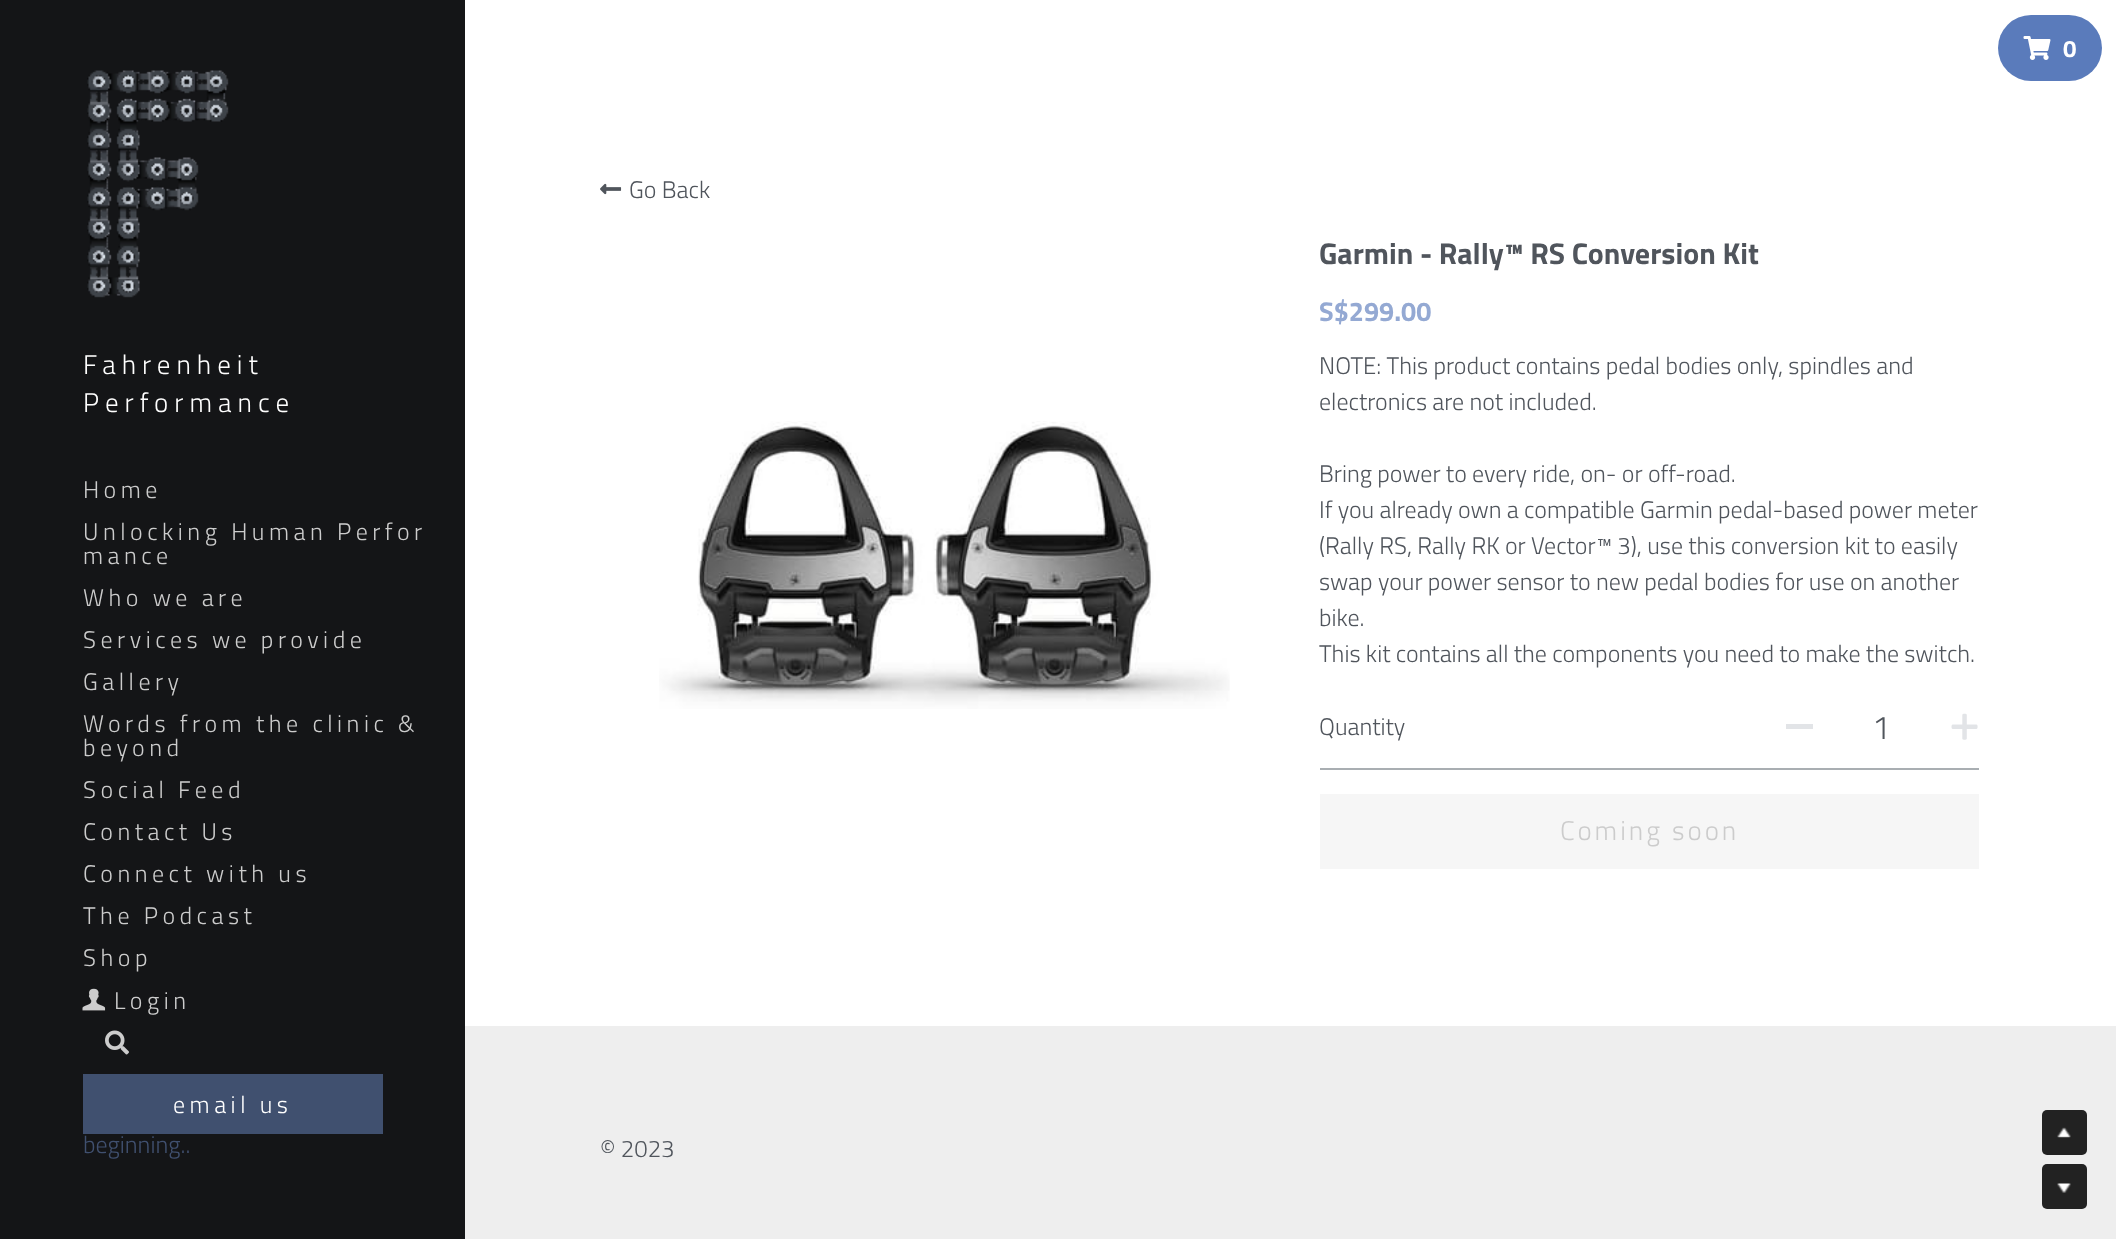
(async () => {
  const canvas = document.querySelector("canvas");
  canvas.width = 2116;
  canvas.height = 1239;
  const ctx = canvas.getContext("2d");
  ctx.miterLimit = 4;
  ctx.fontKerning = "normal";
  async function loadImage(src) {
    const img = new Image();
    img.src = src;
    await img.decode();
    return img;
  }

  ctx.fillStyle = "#ffffff";
  ctx.fillRect(0, 0, 2116, 1239);
  ctx.fillStyle = "#5a7bbb";
  ctx.beginPath();
  ctx.roundRect(1998, 15, 104, 66, 33);
  ctx.fill();
  ctx.drawImage(await loadImage("img/1.png"), 2023, 36, 28, 24);
  ctx.fillStyle = "#141517";
  ctx.fillRect(0, 0, 465, 1239);
  ctx.drawImage(await loadImage("img/2.png"), 87, 70, 142, 228);
  ctx.drawImage(await loadImage("img/3.png"), 82, 988, 24, 23);
  ctx.drawImage(await loadImage("img/4.png"), 105, 1030, 24, 25);
  ctx.fillStyle = "#40506f";
  ctx.fillRect(83, 1074, 300, 60);
  ctx.drawImage(await loadImage("img/5.png"), 600, 183, 22, 12);
  ctx.drawImage(await loadImage("img/6.png"), 659, 421, 571, 288);
  ctx.fillStyle = "#a9aeb2";
  ctx.fillRect(1320, 768, 659, 2);
  ctx.fillStyle = "#e2e4e7";
  ctx.fillRect(1786, 724, 27, 5);
  ctx.drawImage(await loadImage("img/7.png"), 1951, 713, 27, 27);
  ctx.fillStyle = "#f6f6f6";
  ctx.fillRect(1320, 794, 659, 75);
  ctx.fillStyle = "#eeeeee";
  ctx.fillRect(465, 1026, 1651, 213);
  ctx.fillStyle = "#222222";
  ctx.beginPath();
  ctx.roundRect(2042, 1110, 45, 45, 5);
  ctx.fill();
  ctx.drawImage(await loadImage("img/8.png"), 2057, 1127, 14, 11);
  ctx.beginPath();
  ctx.roundRect(2042, 1164, 45, 45, 5);
  ctx.fill();
  ctx.drawImage(await loadImage("img/9.png"), 2057, 1183, 14, 10);
  ctx.font = "bold 24px Titillium Web";
  ctx.fillStyle = "#ffffff";
  ctx.fillText("0", 2063, 57);
  ctx.letterSpacing = "6px";
  ctx.font = "300 27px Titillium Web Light";
  ctx.fillText("Fahrenheit", 83, 374);
  ctx.fillText("Performance", 83, 412);
  ctx.letterSpacing = "4.5px";
  ctx.font = "300 24px Titillium Web Light";
  ctx.fillStyle = "#cccccc";
  for (const [text, x, y] of [
    ["Home", 83, 498],
    ["Unlocking Human Perfor", 83, 540],
    ["mance", 83, 564],
    ["Who we are", 83, 606],
    ["Services we provide", 83, 648],
    ["Gallery", 83, 690],
    ["Words from the clinic &", 83, 732],
    ["beyond", 83, 756],
    ["Social Feed", 83, 798],
    ["Contact Us", 83, 840],
    ["Connect with us", 83, 882],
    ["The Podcast", 83, 924],
    ["Shop", 83, 966],
    ["Login", 114, 1009],
  ]) {
    ctx.fillText(text, x, y);
  }
  ctx.letterSpacing = "0px";
  ctx.fillStyle = "#40506f";
  ctx.fillText("beginning..", 83, 1153);
  ctx.letterSpacing = "4.5px";
  ctx.fillStyle = "#ffffff";
  ctx.fillText("email us", 173, 1113);
  ctx.letterSpacing = "0px";
  ctx.fillStyle = "#50555c";
  ctx.fillText("Go Back", 629, 198);
  ctx.font = "bold 30px Titillium Web";
  ctx.fillText("Garmin - Rally™ RS Conversion Kit", 1319, 264);
  ctx.font = "bold 27px Titillium Web";
  ctx.fillStyle = "#94a9d3";
  ctx.fillText("S$299.00", 1319, 321);
  ctx.font = "300 24px Titillium Web Light";
  ctx.fillStyle = "#50555c";
  for (const [text, x, y] of [
    ["NOTE: This product contains pedal bodies only, spindles and", 1319, 374],
    ["electronics are not included.", 1319, 410],
    ["Bring power to every ride, on- or off-road.", 1319, 482],
    ["If you already own a compatible Garmin pedal-based power meter", 1319, 518],
    ["(Rally RS, Rally RK or Vector™ 3), use this conversion kit to easily", 1319, 554],
    ["swap your power sensor to new pedal bodies for use on another", 1319, 590],
    ["bike.", 1319, 626],
    ["This kit contains all the components you need to make the switch.", 1319, 662],
    ["Quantity", 1319, 735],
  ]) {
    ctx.fillText(text, x, y);
  }
  ctx.font = "300 33px Titillium Web Light";
  ctx.fillText("1", 1872, 739);
  ctx.letterSpacing = "3px";
  ctx.font = "300 27px Titillium Web Light";
  ctx.fillStyle = "#cccccc";
  ctx.fillText("Coming soon", 1560, 840);
  ctx.letterSpacing = "0px";
  ctx.font = "300 24px Titillium Web Light";
  ctx.fillStyle = "#50555c";
  ctx.fillText("© 2023", 600, 1157);
})();
